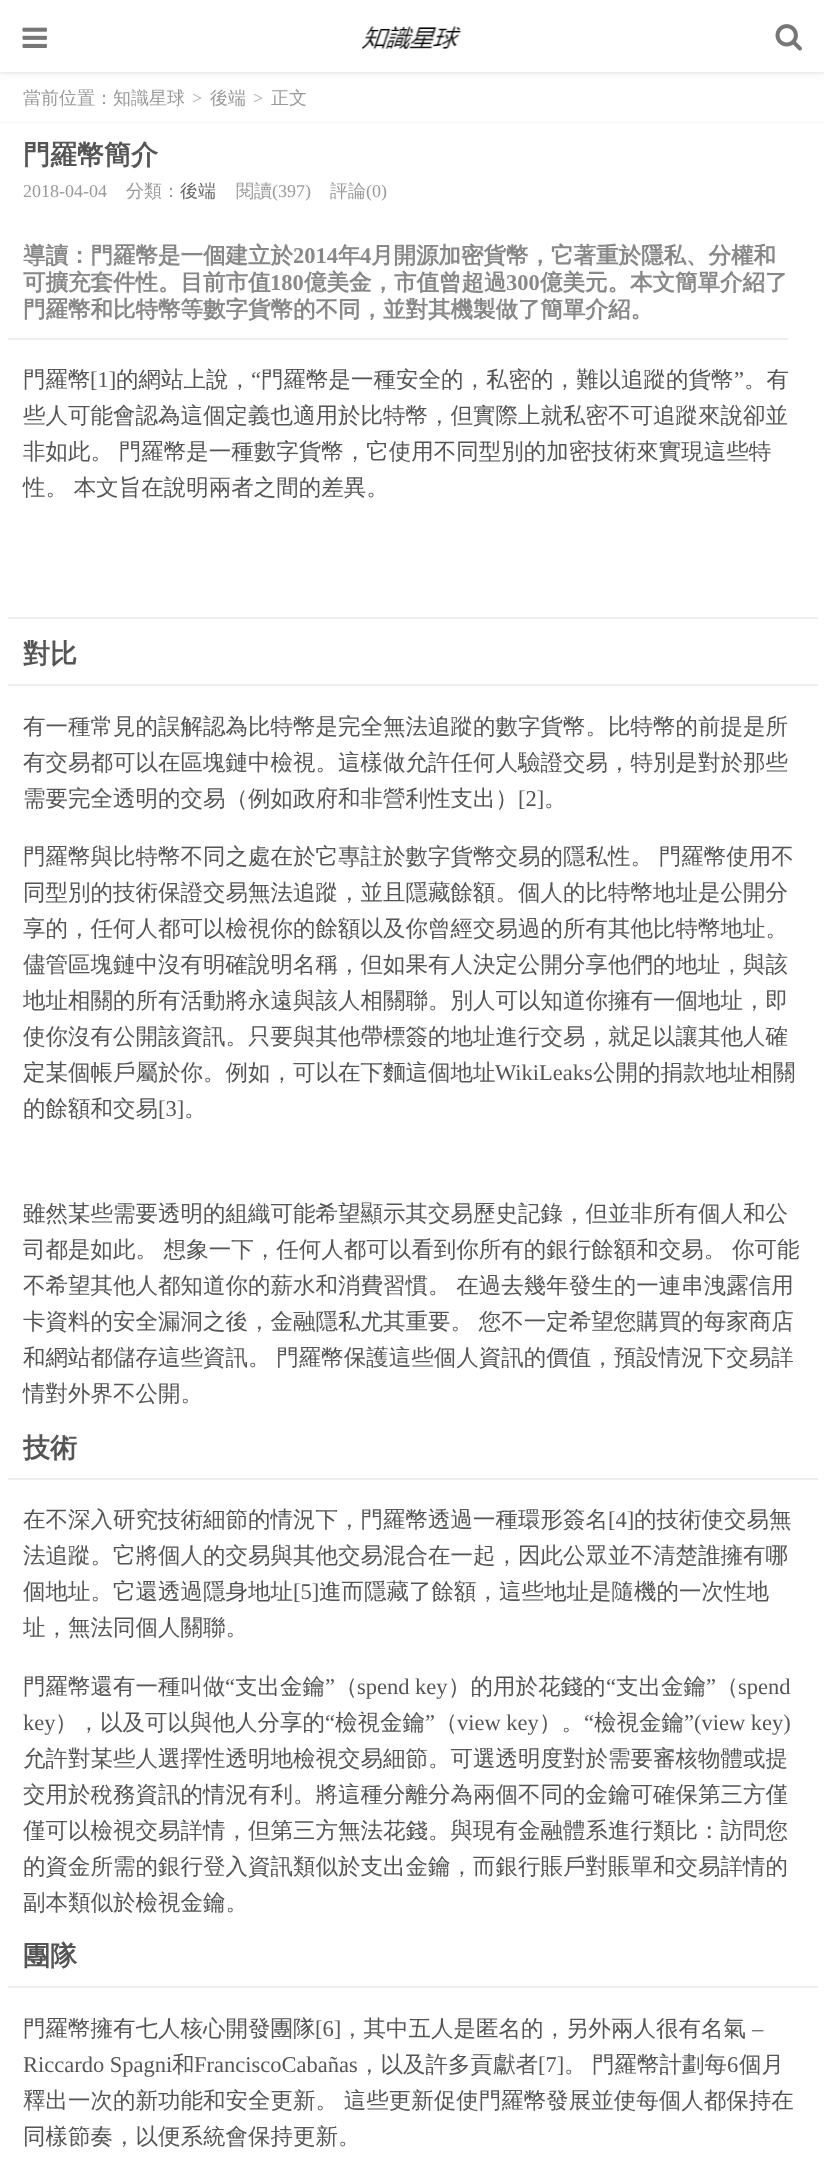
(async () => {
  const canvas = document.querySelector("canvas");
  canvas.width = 824;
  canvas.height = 2169;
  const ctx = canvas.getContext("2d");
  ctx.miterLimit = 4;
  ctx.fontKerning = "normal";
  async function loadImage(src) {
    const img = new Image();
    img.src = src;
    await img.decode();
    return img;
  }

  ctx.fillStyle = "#f6f6f6";
  ctx.fillRect(0, 0, 824, 2169);
  ctx.fillStyle = "#ffffff";
  ctx.fillRect(0, 74, 824, 48);
  ctx.fillStyle = "rgba(0, 0, 0, 0.05)";
  ctx.filter = "blur(4px)";
  ctx.beginPath();
  ctx.rect(0, 2, 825, 72);
  ctx.fill();
  ctx.filter = "none";
  ctx.fillStyle = "#ffffff";
  ctx.fillRect(0, 0, 824, 72);
  ctx.drawImage(await loadImage("img/1.png"), 22, 27, 25, 21);
  ctx.drawImage(await loadImage("img/2.png"), 362, 26, 100, 24);
  ctx.drawImage(await loadImage("img/3.png"), 775, 24, 27, 27);
  for (const [x, y, w, h, color] of [
    [0, 123, 824, 2046, "#ffffff"],
    [8, 338, 780, 2, "#eeeeee"],
    [8, 617, 810, 2, "#eeeeee"],
    [8, 684, 810, 2, "#eeeeee"],
    [8, 1478, 810, 2, "#eeeeee"],
    [8, 1986, 810, 2, "#eeeeee"],
  ]) {
    ctx.fillStyle = color;
    ctx.fillRect(x, y, w, h);
  }
  ctx.font = "500 18px WenQuanYi Zen Hei";
  ctx.fillStyle = "#999999";
  ctx.fillText("當前位置：知識星球", 23, 104);
  ctx.font = "bold 18px Liberation Serif";
  ctx.fillStyle = "#bbbbbb";
  ctx.fillText(">", 192, 104);
  ctx.font = "500 18px WenQuanYi Zen Hei";
  ctx.fillStyle = "#999999";
  ctx.fillText("後端", 210, 104);
  ctx.font = "bold 18px Liberation Serif";
  ctx.fillStyle = "#bbbbbb";
  ctx.fillText(">", 253, 104);
  ctx.font = "500 18px WenQuanYi Zen Hei";
  ctx.fillStyle = "#999999";
  ctx.fillText("正文", 271, 104);
  ctx.font = "bold 27px WenQuanYi Zen Hei";
  ctx.fillStyle = "#555555";
  ctx.fillText("門羅幣簡介", 23, 164);
  ctx.font = "18px Liberation Serif";
  ctx.fillStyle = "#999999";
  ctx.fillText("2018-04-04", 23, 197);
  ctx.font = "500 18px WenQuanYi Zen Hei";
  ctx.fillText("分類：", 126, 197);
  ctx.fillStyle = "#666666";
  ctx.fillText("後端", 180, 197);
  ctx.fillStyle = "#999999";
  ctx.fillText("閱讀", 236, 197);
  ctx.font = "18px Liberation Serif";
  ctx.fillText("(397)", 272, 197);
  ctx.font = "500 18px WenQuanYi Zen Hei";
  ctx.fillText("評論", 330, 197);
  ctx.font = "18px Liberation Serif";
  ctx.fillText("(0)", 366, 197);
  ctx.font = "bold 22.5px WenQuanYi Zen Hei";
  ctx.fillStyle = "#888888";
  ctx.fillText("導讀：門羅幣是一個建立於", 23, 263);
  ctx.font = "bold 22.5px Liberation Serif";
  ctx.fillText("2014", 293, 263);
  ctx.font = "bold 22.5px WenQuanYi Zen Hei";
  ctx.fillText("年", 338, 263);
  ctx.font = "bold 22.5px Liberation Serif";
  ctx.fillText("4", 360, 263);
  ctx.font = "bold 22.5px WenQuanYi Zen Hei";
  ctx.fillText("月開源加密貨幣，它著重於隱私、分權和", 371, 263);
  ctx.fillText("可擴充套件性。目前市值", 23, 290);
  ctx.font = "bold 22.5px Liberation Serif";
  ctx.fillText("180", 270, 290);
  ctx.font = "bold 22.5px WenQuanYi Zen Hei";
  ctx.fillText("億美金，市值曾超過", 304, 290);
  ctx.font = "bold 22.5px Liberation Serif";
  ctx.fillText("300", 506, 290);
  ctx.font = "bold 22.5px WenQuanYi Zen Hei";
  ctx.fillText("億美元。本文簡單介紹了", 540, 290);
  ctx.fillText("門羅幣和比特幣等數字貨幣的不同，並對其機製做了簡單介紹。", 23, 317);
  ctx.font = "500 22.5px WenQuanYi Zen Hei";
  ctx.fillStyle = "#555555";
  ctx.fillText("門羅幣", 23, 387);
  ctx.font = "22.5px Liberation Serif";
  ctx.fillText("[1]", 90, 387);
  ctx.font = "500 22.5px WenQuanYi Zen Hei";
  ctx.fillText("的網站上說，", 116, 387);
  ctx.font = "22.5px Liberation Serif";
  ctx.fillText("“", 251, 387);
  ctx.font = "500 22.5px WenQuanYi Zen Hei";
  ctx.fillText("門羅幣是一種安全的，私密的，難以追蹤的貨幣", 261, 387);
  ctx.font = "22.5px Liberation Serif";
  ctx.fillText("”", 734, 387);
  ctx.font = "500 22.5px WenQuanYi Zen Hei";
  ctx.fillText("。有", 744, 387);
  ctx.fillText("些人可能會認為這個定義也適用於比特幣，但實際上就私密不可追蹤來說卻並", 23, 423);
  ctx.wordSpacing = "-1px";
  ctx.fillText("非如此。 門羅幣是一種數字貨幣，它使用不同型別的加密技術來實現這些特", 23, 459);
  ctx.fillText("性。 本文旨在說明兩者之間的差異。", 23, 495);
  ctx.wordSpacing = "0px";
  ctx.font = "bold 27px WenQuanYi Zen Hei";
  ctx.fillText("對比", 23, 663);
  ctx.font = "500 22.5px WenQuanYi Zen Hei";
  for (const [text, x, y] of [
    ["有一種常見的誤解認為比特幣是完全無法追蹤的數字貨幣。比特幣的前提是所", 23, 734],
    ["有交易都可以在區塊鏈中檢視。這樣做允許任何人驗證交易，特別是對於那些", 23, 770],
    ["需要完全透明的交易（例如政府和非營利性支出）", 23, 806],
  ]) {
    ctx.fillText(text, x, y);
  }
  ctx.font = "22.5px Liberation Serif";
  ctx.fillText("[2]", 518, 806);
  ctx.font = "500 22.5px WenQuanYi Zen Hei";
  ctx.fillText("。", 544, 806);
  ctx.wordSpacing = "-1px";
  ctx.fillText("門羅幣與比特幣不同之處在於它專註於數字貨幣交易的隱私性。 門羅幣使用不", 23, 864);
  ctx.wordSpacing = "0px";
  for (const [text, x, y] of [
    ["同型別的技術保證交易無法追蹤，並且隱藏餘額。個人的比特幣地址是公開分", 23, 900],
    ["享的，任何人都可以檢視你的餘額以及你曾經交易過的所有其他比特幣地址。", 23, 936],
    ["儘管區塊鏈中沒有明確說明名稱，但如果有人決定公開分享他們的地址，與該", 23, 972],
    ["地址相關的所有活動將永遠與該人相關聯。別人可以知道你擁有一個地址，即", 23, 1008],
    ["使你沒有公開該資訊。只要與其他帶標簽的地址進行交易，就足以讓其他人確", 23, 1044],
    ["定某個帳戶屬於你。例如，可以在下麵這個地址", 23, 1080],
  ]) {
    ctx.fillText(text, x, y);
  }
  ctx.font = "22.5px Liberation Serif";
  ctx.fillText("WikiLeaks", 495, 1080);
  ctx.font = "500 22.5px WenQuanYi Zen Hei";
  ctx.fillText("公開的捐款地址相關", 593, 1080);
  ctx.fillText("的餘額和交易", 23, 1116);
  ctx.font = "22.5px Liberation Serif";
  ctx.fillText("[3]", 158, 1116);
  ctx.font = "500 22.5px WenQuanYi Zen Hei";
  ctx.fillText("。", 184, 1116);
  ctx.fillText("雖然某些需要透明的組織可能希望顯示其交易歷史記錄，但並非所有個人和公", 23, 1221);
  ctx.wordSpacing = "-1px";
  for (const [text, x, y] of [
    ["司都是如此。 想象一下，任何人都可以看到你所有的銀行餘額和交易。 你可能", 23, 1257],
    ["不希望其他人都知道你的薪水和消費習慣。 在過去幾年發生的一連串洩露信用", 23, 1293],
    ["卡資料的安全漏洞之後，金融隱私尤其重要。 您不一定希望您購買的每家商店", 23, 1329],
    ["和網站都儲存這些資訊。 門羅幣保護這些個人資訊的價值，預設情況下交易詳", 23, 1365],
  ]) {
    ctx.fillText(text, x, y);
  }
  ctx.wordSpacing = "0px";
  ctx.fillText("情對外界不公開。", 23, 1401);
  ctx.font = "bold 27px WenQuanYi Zen Hei";
  ctx.fillText("技術", 23, 1457);
  ctx.font = "500 22.5px WenQuanYi Zen Hei";
  ctx.fillText("在不深入研究技術細節的情況下，門羅幣透過一種環形簽名", 23, 1527);
  ctx.font = "22.5px Liberation Serif";
  ctx.fillText("[4]", 608, 1527);
  ctx.font = "500 22.5px WenQuanYi Zen Hei";
  for (const [text, x, y] of [
    ["的技術使交易無", 634, 1527],
    ["法追蹤。它將個人的交易與其他交易混合在一起，因此公眾並不清楚誰擁有哪", 23, 1563],
    ["個地址。它還透過隱身地址", 23, 1599],
  ]) {
    ctx.fillText(text, x, y);
  }
  ctx.font = "22.5px Liberation Serif";
  ctx.fillText("[5]", 293, 1599);
  ctx.font = "500 22.5px WenQuanYi Zen Hei";
  for (const [text, x, y] of [
    ["進而隱藏了餘額，這些地址是隨機的一次性地", 319, 1599],
    ["址，無法同個人關聯。", 23, 1635],
    ["門羅幣還有一種叫做", 23, 1694],
  ]) {
    ctx.fillText(text, x, y);
  }
  ctx.font = "22.5px Liberation Serif";
  ctx.fillText("“", 225, 1694);
  ctx.font = "500 22.5px WenQuanYi Zen Hei";
  ctx.fillText("支出金鑰", 235, 1694);
  ctx.font = "22.5px Liberation Serif";
  ctx.fillText("”", 325, 1694);
  ctx.font = "500 22.5px WenQuanYi Zen Hei";
  ctx.fillText("（", 335, 1694);
  ctx.font = "22.5px Liberation Serif";
  ctx.fillText("spend key", 357, 1694);
  ctx.font = "500 22.5px WenQuanYi Zen Hei";
  ctx.fillText("）的用於花錢的", 448, 1694);
  ctx.font = "22.5px Liberation Serif";
  ctx.fillText("“", 606, 1694);
  ctx.font = "500 22.5px WenQuanYi Zen Hei";
  ctx.fillText("支出金鑰", 616, 1694);
  ctx.font = "22.5px Liberation Serif";
  ctx.fillText("”", 706, 1694);
  ctx.font = "500 22.5px WenQuanYi Zen Hei";
  ctx.fillText("（", 716, 1694);
  ctx.font = "22.5px Liberation Serif";
  ctx.fillText("spend", 738, 1694);
  ctx.fillText("key", 23, 1730);
  ctx.font = "500 22.5px WenQuanYi Zen Hei";
  ctx.fillText("），以及可以與他人分享的", 55, 1730);
  ctx.font = "22.5px Liberation Serif";
  ctx.fillText("“", 325, 1730);
  ctx.font = "500 22.5px WenQuanYi Zen Hei";
  ctx.fillText("檢視金鑰", 335, 1730);
  ctx.font = "22.5px Liberation Serif";
  ctx.fillText("”", 425, 1730);
  ctx.font = "500 22.5px WenQuanYi Zen Hei";
  ctx.fillText("（", 435, 1730);
  ctx.font = "22.5px Liberation Serif";
  ctx.fillText("view key", 457, 1730);
  ctx.font = "500 22.5px WenQuanYi Zen Hei";
  ctx.fillText("）。", 539, 1730);
  ctx.font = "22.5px Liberation Serif";
  ctx.fillText("“", 584, 1730);
  ctx.font = "500 22.5px WenQuanYi Zen Hei";
  ctx.fillText("檢視金鑰", 594, 1730);
  ctx.font = "22.5px Liberation Serif";
  ctx.fillText("”(view key)", 684, 1730);
  ctx.font = "500 22.5px WenQuanYi Zen Hei";
  for (const [text, x, y] of [
    ["允許對某些人選擇性透明地檢視交易細節。可選透明度對於需要審核物體或提", 23, 1766],
    ["交用於稅務資訊的情況有利。將這種分離分為兩個不同的金鑰可確保第三方僅", 23, 1802],
    ["僅可以檢視交易詳情，但第三方無法花錢。與現有金融體系進行類比：訪問您", 23, 1838],
    ["的資金所需的銀行登入資訊類似於支出金鑰，而銀行賬戶對賬單和交易詳情的", 23, 1874],
    ["副本類似於檢視金鑰。", 23, 1910],
  ]) {
    ctx.fillText(text, x, y);
  }
  ctx.font = "bold 27px WenQuanYi Zen Hei";
  ctx.fillText("團隊", 23, 1965);
  ctx.font = "500 22.5px WenQuanYi Zen Hei";
  ctx.fillText("門羅幣擁有七人核心開發團隊", 23, 2036);
  ctx.font = "22.5px Liberation Serif";
  ctx.fillText("[6]", 315, 2036);
  ctx.font = "500 22.5px WenQuanYi Zen Hei";
  ctx.fillText("，其中五人是匿名的，另外兩人很有名氣", 341, 2036);
  ctx.font = "22.5px Liberation Serif";
  ctx.fillText("–", 752, 2036);
  ctx.fillText("Riccardo Spagni", 23, 2072);
  ctx.font = "500 22.5px WenQuanYi Zen Hei";
  ctx.fillText("和", 172, 2072);
  ctx.font = "22.5px Liberation Serif";
  ctx.fillText("FranciscoCabañas", 194, 2072);
  ctx.font = "500 22.5px WenQuanYi Zen Hei";
  ctx.fillText("，以及許多貢獻者", 358, 2072);
  ctx.font = "22.5px Liberation Serif";
  ctx.fillText("[7]", 538, 2072);
  ctx.font = "500 22.5px WenQuanYi Zen Hei";
  ctx.fillText("。", 564, 2072);
  ctx.fillText("門羅幣計劃每", 592, 2072);
  ctx.font = "22.5px Liberation Serif";
  ctx.fillText("6", 727, 2072);
  ctx.font = "500 22.5px WenQuanYi Zen Hei";
  ctx.fillText("個月", 739, 2072);
  ctx.wordSpacing = "-1px";
  ctx.fillText("釋出一次的新功能和安全更新。 這些更新促使門羅幣發展並使每個人都保持在", 23, 2108);
  ctx.wordSpacing = "0px";
  ctx.fillText("同樣節奏，以便系統會保持更新。", 23, 2144);
})();
